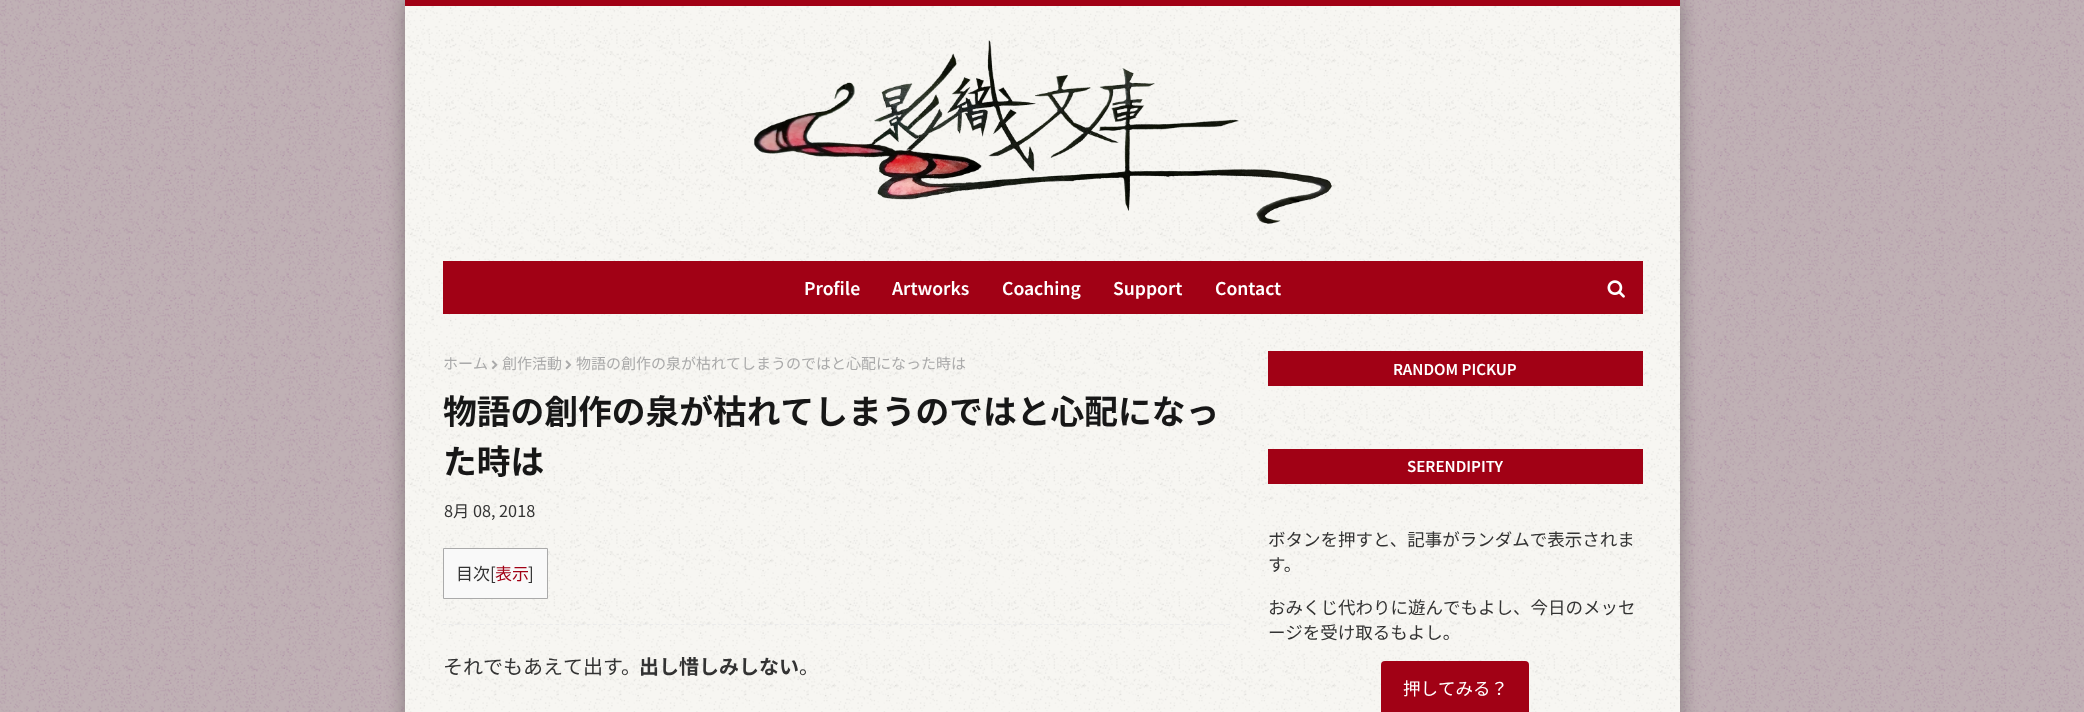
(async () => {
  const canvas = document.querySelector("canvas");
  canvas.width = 2084;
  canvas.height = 712;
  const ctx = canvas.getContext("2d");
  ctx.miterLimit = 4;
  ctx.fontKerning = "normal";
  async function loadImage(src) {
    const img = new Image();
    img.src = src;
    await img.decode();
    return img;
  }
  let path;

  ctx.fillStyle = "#ffffff";
  ctx.fillRect(0, 0, 2084, 712);
  ctx.drawImage(await loadImage("img/1.png"), 0, 0, 2084, 712);
  ctx.fillStyle = "rgba(0, 0, 0, 0.3)";
  ctx.filter = "blur(10px)";
  ctx.beginPath();
  ctx.rect(405, 0, 1275, 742);
  ctx.fill();
  ctx.filter = "none";
  ctx.drawImage(await loadImage("img/2.png"), 405, 6, 1275, 706);
  ctx.fillStyle = "#a10115";
  ctx.fillRect(405, 0, 1275, 6);
  ctx.drawImage(await loadImage("img/3.png"), 754, 40, 578, 184);
  ctx.fillRect(443, 261, 1200, 53);
  ctx.drawImage(await loadImage("img/4.png"), 1607, 280, 18, 18);
  ctx.drawImage(await loadImage("img/5.png"), 491, 360, 7, 10);
  ctx.drawImage(await loadImage("img/6.png"), 565, 360, 7, 10);
  ctx.fillStyle = "#f9f9f9";
  ctx.beginPath();
  ctx.rect(443.5, 548.5, 104, 50);
  ctx.fill();
  ctx.strokeStyle = "#aaaaaa";
  ctx.stroke();
  path = new Path2D("M442.5 624.5H1230");
  ctx.strokeStyle = "#ebebeb";
  ctx.lineWidth = 1.2;
  ctx.setLineDash([3.75, 2.52]);
  ctx.stroke(path);
  ctx.fillStyle = "#a10115";
  ctx.fillRect(1268, 351, 375, 35);
  ctx.fillRect(1268, 449, 375, 35);
  ctx.beginPath();
  ctx.roundRect(1381, 661, 148, 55, 4);
  ctx.fill();
  ctx.font = "600 17.5px Noto Sans JP";
  ctx.fillStyle = "#ffffff";
  for (const [text, x, y] of [
    ["Profile", 804, 295],
    ["Artworks", 892, 295],
    ["Coaching", 1002, 295],
    ["Support", 1113, 295],
    ["Contact", 1215, 295],
  ]) {
    ctx.fillText(text, x, y);
  }
  ctx.font = "15px Noto Sans JP";
  ctx.fillStyle = "#aaaaaa";
  for (const [text, x, y] of [
    ["ホーム", 443, 369],
    ["創作活動", 502, 369],
    ["物語の創作の泉が枯れてしまうのではと心配になった時は", 576, 369],
  ]) {
    ctx.fillText(text, x, y);
  }
  ctx.font = "bold 33.75px Noto Sans JP";
  ctx.fillStyle = "#171717";
  ctx.fillText("物語の創作の泉が枯れてしまうのではと心配になっ", 443, 424);
  ctx.fillText("た時は", 443, 474);
  ctx.font = "16.25px Noto Sans JP";
  ctx.fillStyle = "#333333";
  ctx.fillText("8月 08, 2018", 444, 517);
  ctx.font = "17px Noto Sans JP";
  ctx.fillText("目次[", 456, 580);
  ctx.fillStyle = "#a10115";
  ctx.fillText("表示", 495, 580);
  ctx.fillStyle = "#333333";
  ctx.fillText("]", 528, 580);
  ctx.font = "20px Noto Sans JP";
  ctx.fillText("それでもあえて出す。", 443, 674);
  ctx.font = "bold 20px Noto Sans JP";
  ctx.fillText("出し惜しみしない", 639, 674);
  ctx.font = "20px Noto Sans JP";
  ctx.fillText("。", 799, 674);
  ctx.font = "600 15px Noto Sans JP";
  ctx.fillStyle = "#ffffff";
  ctx.fillText("RANDOM PICKUP", 1393, 375);
  ctx.fillText("SERENDIPITY", 1407, 472);
  ctx.font = "17.5px Noto Sans JP";
  ctx.fillStyle = "#333333";
  for (const [text, x, y] of [
    ["ボタンを押すと、記事がランダムで表示されま", 1268, 546],
    ["す。", 1268, 571],
    ["おみくじ代わりに遊んでもよし、今日のメッセ", 1268, 614],
    ["ージを受け取るもよし。", 1268, 639],
  ]) {
    ctx.fillText(text, x, y);
  }
  ctx.fillStyle = "#ffffff";
  ctx.fillText("押してみる？", 1403, 695);
})();
